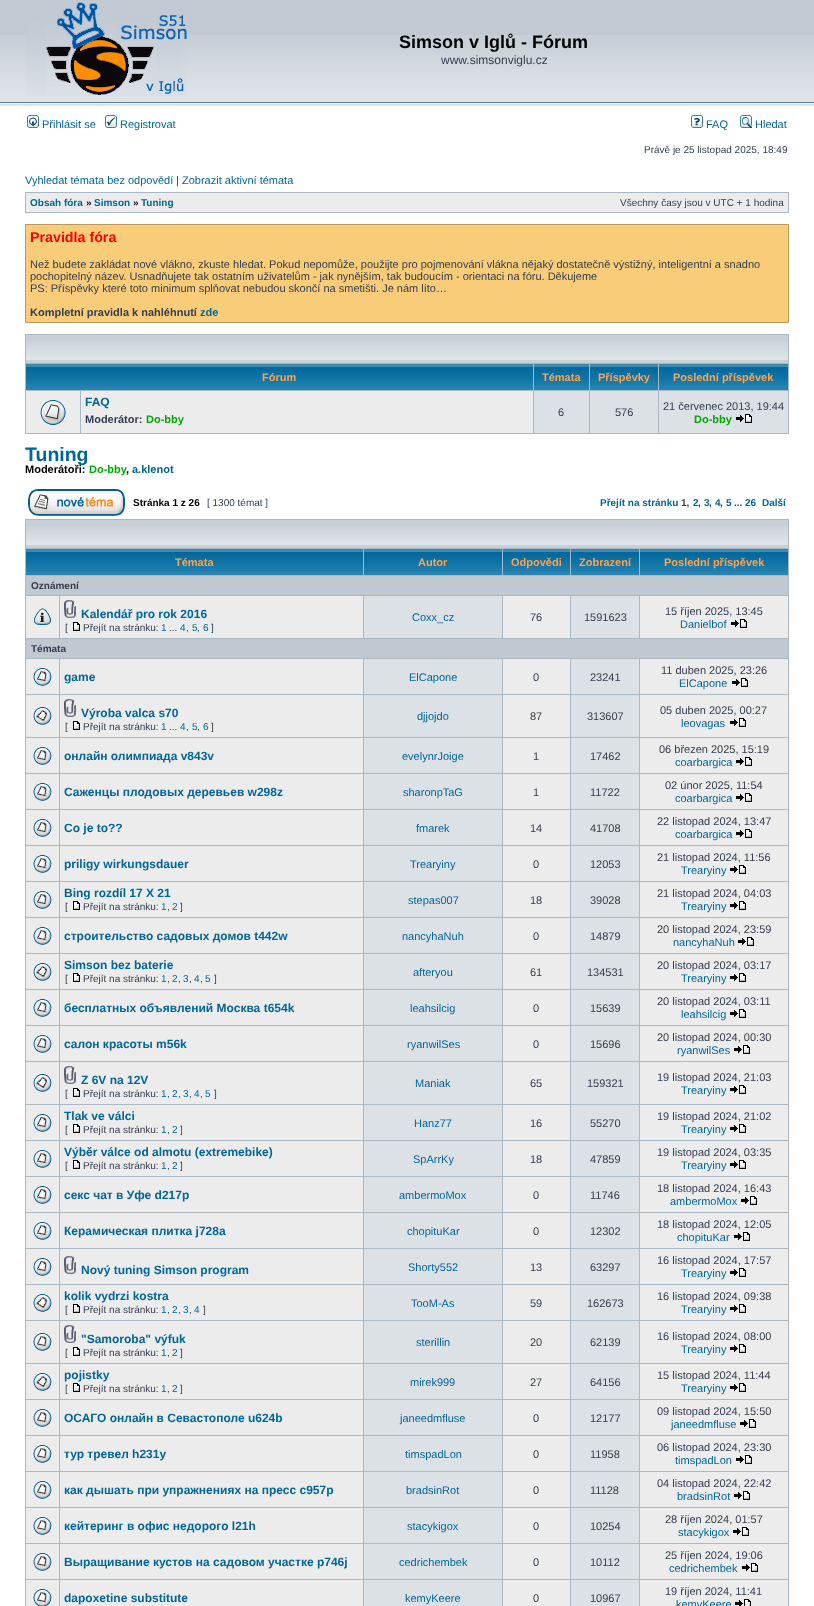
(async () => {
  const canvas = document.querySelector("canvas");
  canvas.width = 814;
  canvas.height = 1606;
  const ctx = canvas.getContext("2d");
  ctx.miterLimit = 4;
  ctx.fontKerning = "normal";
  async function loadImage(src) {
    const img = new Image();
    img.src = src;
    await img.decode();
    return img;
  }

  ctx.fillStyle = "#ffffff";
  ctx.fillRect(0, 0, 814, 1606);
  ctx.fillStyle = "#c1cad2";
  ctx.fillRect(0, 0, 814, 35);
  ctx.drawImage(await loadImage("img/1.png"), 0, 35, 814, 78);
  ctx.drawImage(await loadImage("img/2.png"), 27, 2, 160, 94);
  ctx.drawImage(await loadImage("img/3.png"), 27, 115, 12, 13);
  ctx.drawImage(await loadImage("img/4.png"), 105, 115, 12, 13);
  ctx.drawImage(await loadImage("img/5.png"), 691, 115, 12, 13);
  ctx.drawImage(await loadImage("img/6.png"), 740, 115, 12, 13);
  ctx.fillStyle = "#a9b8c2";
  ctx.fillRect(25, 192, 764, 21);
  ctx.fillStyle = "#ececec";
  ctx.fillRect(26, 193, 762, 19);
  ctx.fillStyle = "#f9cc79";
  ctx.beginPath();
  ctx.rect(25.5, 224.5, 763, 98);
  ctx.fill();
  ctx.strokeStyle = "#bb9860";
  ctx.stroke();
  ctx.fillStyle = "#a9b8c2";
  ctx.fillRect(25, 334, 764, 100);
  ctx.fillStyle = "#c7d0d7";
  ctx.fillRect(26, 335, 762, 28);
  ctx.drawImage(await loadImage("img/7.png"), 26, 341, 762, 19);
  ctx.drawImage(await loadImage("img/8.png"), 26, 364, 507, 26);
  ctx.drawImage(await loadImage("img/9.png"), 534, 364, 55, 26);
  ctx.drawImage(await loadImage("img/10.png"), 590, 364, 68, 26);
  ctx.drawImage(await loadImage("img/11.png"), 659, 364, 129, 26);
  ctx.fillStyle = "#ececec";
  ctx.fillRect(26, 391, 54, 42);
  ctx.drawImage(await loadImage("img/12.png"), 40, 400, 26, 25);
  for (const [x, y, w, h, color] of [
    [81, 391, 452, 42, "#ececec"],
    [534, 391, 55, 42, "#dce1e5"],
    [590, 391, 68, 42, "#dce1e5"],
    [659, 391, 129, 42, "#dce1e5"],
  ]) {
    ctx.fillStyle = color;
    ctx.fillRect(x, y, w, h);
  }
  ctx.drawImage(await loadImage("img/13.png"), 736, 414, 16, 9);
  ctx.drawImage(await loadImage("img/14.png"), 28, 489, 97, 27);
  ctx.fillStyle = "#a9b8c2";
  ctx.fillRect(25, 519, 764, 1087);
  ctx.fillStyle = "#c7d0d7";
  ctx.fillRect(26, 520, 762, 28);
  ctx.drawImage(await loadImage("img/7.png"), 26, 526, 762, 19);
  ctx.drawImage(await loadImage("img/15.png"), 26, 549, 337, 26);
  ctx.drawImage(await loadImage("img/16.png"), 364, 549, 138, 26);
  ctx.drawImage(await loadImage("img/17.png"), 503, 549, 67, 26);
  ctx.drawImage(await loadImage("img/10.png"), 571, 549, 68, 26);
  ctx.drawImage(await loadImage("img/18.png"), 640, 549, 148, 26);
  ctx.fillStyle = "#c0c8d0";
  ctx.fillRect(26, 576, 762, 19);
  ctx.fillStyle = "#ececec";
  ctx.fillRect(26, 596, 33, 42);
  ctx.drawImage(await loadImage("img/19.png"), 33, 608, 19, 17);
  ctx.fillRect(60, 596, 303, 42);
  ctx.drawImage(await loadImage("img/20.png"), 64, 600, 12, 18);
  ctx.drawImage(await loadImage("img/21.png"), 73, 622, 7, 9);
  for (const [x, y, w, h, color] of [
    [364, 596, 138, 42, "#dce1e5"],
    [503, 596, 67, 42, "#ececec"],
    [571, 596, 68, 42, "#dce1e5"],
    [640, 596, 148, 42, "#ececec"],
  ]) {
    ctx.fillStyle = color;
    ctx.fillRect(x, y, w, h);
  }
  ctx.drawImage(await loadImage("img/22.png"), 731, 619, 16, 9);
  ctx.fillStyle = "#c0c8d0";
  ctx.fillRect(26, 639, 762, 19);
  ctx.fillStyle = "#ececec";
  ctx.fillRect(26, 659, 33, 35);
  ctx.drawImage(await loadImage("img/23.png"), 33, 668, 19, 18);
  for (const [x, y, w, h, color] of [
    [60, 659, 303, 35, "#ececec"],
    [364, 659, 138, 35, "#dce1e5"],
    [503, 659, 67, 35, "#ececec"],
    [571, 659, 68, 35, "#dce1e5"],
    [640, 659, 148, 35, "#ececec"],
  ]) {
    ctx.fillStyle = color;
    ctx.fillRect(x, y, w, h);
  }
  ctx.drawImage(await loadImage("img/22.png"), 732, 678, 16, 9);
  ctx.fillRect(26, 695, 33, 42);
  ctx.drawImage(await loadImage("img/24.png"), 33, 707, 19, 18);
  ctx.fillRect(60, 695, 303, 42);
  ctx.drawImage(await loadImage("img/20.png"), 64, 699, 12, 18);
  ctx.drawImage(await loadImage("img/21.png"), 73, 721, 7, 9);
  for (const [x, y, w, h, color] of [
    [364, 695, 138, 42, "#dce1e5"],
    [503, 695, 67, 42, "#ececec"],
    [571, 695, 68, 42, "#dce1e5"],
    [640, 695, 148, 42, "#ececec"],
  ]) {
    ctx.fillStyle = color;
    ctx.fillRect(x, y, w, h);
  }
  ctx.drawImage(await loadImage("img/22.png"), 730, 718, 16, 9);
  ctx.fillRect(26, 738, 33, 35);
  ctx.drawImage(await loadImage("img/23.png"), 33, 747, 19, 18);
  for (const [x, y, w, h, color] of [
    [60, 738, 303, 35, "#ececec"],
    [364, 738, 138, 35, "#dce1e5"],
    [503, 738, 67, 35, "#ececec"],
    [571, 738, 68, 35, "#dce1e5"],
    [640, 738, 148, 35, "#ececec"],
  ]) {
    ctx.fillStyle = color;
    ctx.fillRect(x, y, w, h);
  }
  ctx.drawImage(await loadImage("img/22.png"), 736, 757, 16, 9);
  ctx.fillRect(26, 774, 33, 35);
  ctx.drawImage(await loadImage("img/23.png"), 33, 783, 19, 18);
  for (const [x, y, w, h, color] of [
    [60, 774, 303, 35, "#ececec"],
    [364, 774, 138, 35, "#dce1e5"],
    [503, 774, 67, 35, "#ececec"],
    [571, 774, 68, 35, "#dce1e5"],
    [640, 774, 148, 35, "#ececec"],
  ]) {
    ctx.fillStyle = color;
    ctx.fillRect(x, y, w, h);
  }
  ctx.drawImage(await loadImage("img/22.png"), 736, 793, 16, 9);
  ctx.fillRect(26, 810, 33, 35);
  ctx.drawImage(await loadImage("img/23.png"), 33, 819, 19, 18);
  for (const [x, y, w, h, color] of [
    [60, 810, 303, 35, "#ececec"],
    [364, 810, 138, 35, "#dce1e5"],
    [503, 810, 67, 35, "#ececec"],
    [571, 810, 68, 35, "#dce1e5"],
    [640, 810, 148, 35, "#ececec"],
  ]) {
    ctx.fillStyle = color;
    ctx.fillRect(x, y, w, h);
  }
  ctx.drawImage(await loadImage("img/22.png"), 736, 829, 16, 9);
  ctx.fillRect(26, 846, 33, 35);
  ctx.drawImage(await loadImage("img/23.png"), 33, 855, 19, 18);
  for (const [x, y, w, h, color] of [
    [60, 846, 303, 35, "#ececec"],
    [364, 846, 138, 35, "#dce1e5"],
    [503, 846, 67, 35, "#ececec"],
    [571, 846, 68, 35, "#dce1e5"],
    [640, 846, 148, 35, "#ececec"],
  ]) {
    ctx.fillStyle = color;
    ctx.fillRect(x, y, w, h);
  }
  ctx.drawImage(await loadImage("img/22.png"), 730, 865, 16, 9);
  ctx.fillRect(26, 882, 33, 35);
  ctx.drawImage(await loadImage("img/23.png"), 33, 891, 19, 18);
  ctx.fillRect(60, 882, 303, 35);
  ctx.drawImage(await loadImage("img/21.png"), 73, 901, 7, 9);
  for (const [x, y, w, h, color] of [
    [364, 882, 138, 35, "#dce1e5"],
    [503, 882, 67, 35, "#ececec"],
    [571, 882, 68, 35, "#dce1e5"],
    [640, 882, 148, 35, "#ececec"],
  ]) {
    ctx.fillStyle = color;
    ctx.fillRect(x, y, w, h);
  }
  ctx.drawImage(await loadImage("img/22.png"), 730, 901, 16, 9);
  ctx.fillRect(26, 918, 33, 35);
  ctx.drawImage(await loadImage("img/23.png"), 33, 927, 19, 18);
  for (const [x, y, w, h, color] of [
    [60, 918, 303, 35, "#ececec"],
    [364, 918, 138, 35, "#dce1e5"],
    [503, 918, 67, 35, "#ececec"],
    [571, 918, 68, 35, "#dce1e5"],
    [640, 918, 148, 35, "#ececec"],
  ]) {
    ctx.fillStyle = color;
    ctx.fillRect(x, y, w, h);
  }
  ctx.drawImage(await loadImage("img/22.png"), 738, 937, 16, 9);
  ctx.fillRect(26, 954, 33, 35);
  ctx.drawImage(await loadImage("img/24.png"), 33, 963, 19, 18);
  ctx.fillRect(60, 954, 303, 35);
  ctx.drawImage(await loadImage("img/21.png"), 73, 973, 7, 9);
  for (const [x, y, w, h, color] of [
    [364, 954, 138, 35, "#dce1e5"],
    [503, 954, 67, 35, "#ececec"],
    [571, 954, 68, 35, "#dce1e5"],
    [640, 954, 148, 35, "#ececec"],
  ]) {
    ctx.fillStyle = color;
    ctx.fillRect(x, y, w, h);
  }
  ctx.drawImage(await loadImage("img/22.png"), 730, 973, 16, 9);
  ctx.fillRect(26, 990, 33, 35);
  ctx.drawImage(await loadImage("img/23.png"), 33, 999, 19, 18);
  for (const [x, y, w, h, color] of [
    [60, 990, 303, 35, "#ececec"],
    [364, 990, 138, 35, "#dce1e5"],
    [503, 990, 67, 35, "#ececec"],
    [571, 990, 68, 35, "#dce1e5"],
    [640, 990, 148, 35, "#ececec"],
  ]) {
    ctx.fillStyle = color;
    ctx.fillRect(x, y, w, h);
  }
  ctx.drawImage(await loadImage("img/22.png"), 730, 1009, 16, 9);
  ctx.fillRect(26, 1026, 33, 35);
  ctx.drawImage(await loadImage("img/23.png"), 33, 1035, 19, 18);
  for (const [x, y, w, h, color] of [
    [60, 1026, 303, 35, "#ececec"],
    [364, 1026, 138, 35, "#dce1e5"],
    [503, 1026, 67, 35, "#ececec"],
    [571, 1026, 68, 35, "#dce1e5"],
    [640, 1026, 148, 35, "#ececec"],
  ]) {
    ctx.fillStyle = color;
    ctx.fillRect(x, y, w, h);
  }
  ctx.drawImage(await loadImage("img/22.png"), 734, 1045, 16, 9);
  ctx.fillRect(26, 1062, 33, 42);
  ctx.drawImage(await loadImage("img/24.png"), 33, 1074, 19, 18);
  ctx.fillRect(60, 1062, 303, 42);
  ctx.drawImage(await loadImage("img/20.png"), 64, 1066, 12, 18);
  ctx.drawImage(await loadImage("img/21.png"), 73, 1088, 7, 9);
  for (const [x, y, w, h, color] of [
    [364, 1062, 138, 42, "#dce1e5"],
    [503, 1062, 67, 42, "#ececec"],
    [571, 1062, 68, 42, "#dce1e5"],
    [640, 1062, 148, 42, "#ececec"],
  ]) {
    ctx.fillStyle = color;
    ctx.fillRect(x, y, w, h);
  }
  ctx.drawImage(await loadImage("img/22.png"), 730, 1085, 16, 9);
  ctx.fillRect(26, 1105, 33, 35);
  ctx.drawImage(await loadImage("img/23.png"), 33, 1114, 19, 18);
  ctx.fillRect(60, 1105, 303, 35);
  ctx.drawImage(await loadImage("img/21.png"), 73, 1124, 7, 9);
  for (const [x, y, w, h, color] of [
    [364, 1105, 138, 35, "#dce1e5"],
    [503, 1105, 67, 35, "#ececec"],
    [571, 1105, 68, 35, "#dce1e5"],
    [640, 1105, 148, 35, "#ececec"],
  ]) {
    ctx.fillStyle = color;
    ctx.fillRect(x, y, w, h);
  }
  ctx.drawImage(await loadImage("img/22.png"), 730, 1124, 16, 9);
  ctx.fillRect(26, 1141, 33, 35);
  ctx.drawImage(await loadImage("img/23.png"), 33, 1150, 19, 18);
  ctx.fillRect(60, 1141, 303, 35);
  ctx.drawImage(await loadImage("img/21.png"), 73, 1160, 7, 9);
  for (const [x, y, w, h, color] of [
    [364, 1141, 138, 35, "#dce1e5"],
    [503, 1141, 67, 35, "#ececec"],
    [571, 1141, 68, 35, "#dce1e5"],
    [640, 1141, 148, 35, "#ececec"],
  ]) {
    ctx.fillStyle = color;
    ctx.fillRect(x, y, w, h);
  }
  ctx.drawImage(await loadImage("img/22.png"), 730, 1160, 16, 9);
  ctx.fillRect(26, 1177, 33, 35);
  ctx.drawImage(await loadImage("img/23.png"), 33, 1186, 19, 18);
  for (const [x, y, w, h, color] of [
    [60, 1177, 303, 35, "#ececec"],
    [364, 1177, 138, 35, "#dce1e5"],
    [503, 1177, 67, 35, "#ececec"],
    [571, 1177, 68, 35, "#dce1e5"],
    [640, 1177, 148, 35, "#ececec"],
  ]) {
    ctx.fillStyle = color;
    ctx.fillRect(x, y, w, h);
  }
  ctx.drawImage(await loadImage("img/22.png"), 741, 1196, 16, 9);
  ctx.fillRect(26, 1213, 33, 35);
  ctx.drawImage(await loadImage("img/23.png"), 33, 1222, 19, 18);
  for (const [x, y, w, h, color] of [
    [60, 1213, 303, 35, "#ececec"],
    [364, 1213, 138, 35, "#dce1e5"],
    [503, 1213, 67, 35, "#ececec"],
    [571, 1213, 68, 35, "#dce1e5"],
    [640, 1213, 148, 35, "#ececec"],
  ]) {
    ctx.fillStyle = color;
    ctx.fillRect(x, y, w, h);
  }
  ctx.drawImage(await loadImage("img/22.png"), 734, 1232, 16, 9);
  ctx.fillRect(26, 1249, 33, 35);
  ctx.drawImage(await loadImage("img/23.png"), 33, 1258, 19, 18);
  ctx.fillRect(60, 1249, 303, 35);
  ctx.drawImage(await loadImage("img/20.png"), 64, 1256, 12, 18);
  for (const [x, y, w, h, color] of [
    [364, 1249, 138, 35, "#dce1e5"],
    [503, 1249, 67, 35, "#ececec"],
    [571, 1249, 68, 35, "#dce1e5"],
    [640, 1249, 148, 35, "#ececec"],
  ]) {
    ctx.fillStyle = color;
    ctx.fillRect(x, y, w, h);
  }
  ctx.drawImage(await loadImage("img/22.png"), 730, 1268, 16, 9);
  ctx.fillRect(26, 1285, 33, 35);
  ctx.drawImage(await loadImage("img/24.png"), 33, 1294, 19, 18);
  ctx.fillRect(60, 1285, 303, 35);
  ctx.drawImage(await loadImage("img/21.png"), 73, 1304, 7, 9);
  for (const [x, y, w, h, color] of [
    [364, 1285, 138, 35, "#dce1e5"],
    [503, 1285, 67, 35, "#ececec"],
    [571, 1285, 68, 35, "#dce1e5"],
    [640, 1285, 148, 35, "#ececec"],
  ]) {
    ctx.fillStyle = color;
    ctx.fillRect(x, y, w, h);
  }
  ctx.drawImage(await loadImage("img/22.png"), 730, 1304, 16, 9);
  ctx.fillRect(26, 1321, 33, 42);
  ctx.drawImage(await loadImage("img/23.png"), 33, 1333, 19, 18);
  ctx.fillRect(60, 1321, 303, 42);
  ctx.drawImage(await loadImage("img/20.png"), 64, 1325, 12, 18);
  ctx.drawImage(await loadImage("img/21.png"), 73, 1347, 7, 9);
  for (const [x, y, w, h, color] of [
    [364, 1321, 138, 42, "#dce1e5"],
    [503, 1321, 67, 42, "#ececec"],
    [571, 1321, 68, 42, "#dce1e5"],
    [640, 1321, 148, 42, "#ececec"],
  ]) {
    ctx.fillStyle = color;
    ctx.fillRect(x, y, w, h);
  }
  ctx.drawImage(await loadImage("img/22.png"), 730, 1344, 16, 9);
  ctx.fillRect(26, 1364, 33, 35);
  ctx.drawImage(await loadImage("img/24.png"), 33, 1373, 19, 18);
  ctx.fillRect(60, 1364, 303, 35);
  ctx.drawImage(await loadImage("img/21.png"), 73, 1383, 7, 9);
  for (const [x, y, w, h, color] of [
    [364, 1364, 138, 35, "#dce1e5"],
    [503, 1364, 67, 35, "#ececec"],
    [571, 1364, 68, 35, "#dce1e5"],
    [640, 1364, 148, 35, "#ececec"],
  ]) {
    ctx.fillStyle = color;
    ctx.fillRect(x, y, w, h);
  }
  ctx.drawImage(await loadImage("img/22.png"), 730, 1383, 16, 9);
  ctx.fillRect(26, 1400, 33, 35);
  ctx.drawImage(await loadImage("img/23.png"), 33, 1409, 19, 18);
  for (const [x, y, w, h, color] of [
    [60, 1400, 303, 35, "#ececec"],
    [364, 1400, 138, 35, "#dce1e5"],
    [503, 1400, 67, 35, "#ececec"],
    [571, 1400, 68, 35, "#dce1e5"],
    [640, 1400, 148, 35, "#ececec"],
  ]) {
    ctx.fillStyle = color;
    ctx.fillRect(x, y, w, h);
  }
  ctx.drawImage(await loadImage("img/22.png"), 740, 1419, 16, 9);
  ctx.fillRect(26, 1436, 33, 35);
  ctx.drawImage(await loadImage("img/23.png"), 33, 1445, 19, 18);
  for (const [x, y, w, h, color] of [
    [60, 1436, 303, 35, "#ececec"],
    [364, 1436, 138, 35, "#dce1e5"],
    [503, 1436, 67, 35, "#ececec"],
    [571, 1436, 68, 35, "#dce1e5"],
    [640, 1436, 148, 35, "#ececec"],
  ]) {
    ctx.fillStyle = color;
    ctx.fillRect(x, y, w, h);
  }
  ctx.drawImage(await loadImage("img/22.png"), 736, 1455, 16, 9);
  ctx.fillRect(26, 1472, 33, 35);
  ctx.drawImage(await loadImage("img/23.png"), 33, 1481, 19, 18);
  for (const [x, y, w, h, color] of [
    [60, 1472, 303, 35, "#ececec"],
    [364, 1472, 138, 35, "#dce1e5"],
    [503, 1472, 67, 35, "#ececec"],
    [571, 1472, 68, 35, "#dce1e5"],
    [640, 1472, 148, 35, "#ececec"],
  ]) {
    ctx.fillStyle = color;
    ctx.fillRect(x, y, w, h);
  }
  ctx.drawImage(await loadImage("img/22.png"), 734, 1491, 16, 9);
  ctx.fillRect(26, 1508, 33, 35);
  ctx.drawImage(await loadImage("img/23.png"), 33, 1517, 19, 18);
  for (const [x, y, w, h, color] of [
    [60, 1508, 303, 35, "#ececec"],
    [364, 1508, 138, 35, "#dce1e5"],
    [503, 1508, 67, 35, "#ececec"],
    [571, 1508, 68, 35, "#dce1e5"],
    [640, 1508, 148, 35, "#ececec"],
  ]) {
    ctx.fillStyle = color;
    ctx.fillRect(x, y, w, h);
  }
  ctx.drawImage(await loadImage("img/22.png"), 733, 1527, 16, 9);
  ctx.fillRect(26, 1544, 33, 35);
  ctx.drawImage(await loadImage("img/23.png"), 33, 1553, 19, 18);
  for (const [x, y, w, h, color] of [
    [60, 1544, 303, 35, "#ececec"],
    [364, 1544, 138, 35, "#dce1e5"],
    [503, 1544, 67, 35, "#ececec"],
    [571, 1544, 68, 35, "#dce1e5"],
    [640, 1544, 148, 35, "#ececec"],
  ]) {
    ctx.fillStyle = color;
    ctx.fillRect(x, y, w, h);
  }
  ctx.drawImage(await loadImage("img/22.png"), 742, 1563, 16, 9);
  ctx.fillRect(26, 1580, 33, 26);
  ctx.drawImage(await loadImage("img/25.png"), 33, 1589, 19, 17);
  for (const [x, y, w, h, color] of [
    [60, 1580, 303, 26, "#ececec"],
    [364, 1580, 138, 26, "#dce1e5"],
    [503, 1580, 67, 26, "#ececec"],
    [571, 1580, 68, 26, "#dce1e5"],
    [640, 1580, 148, 26, "#ececec"],
  ]) {
    ctx.fillStyle = color;
    ctx.fillRect(x, y, w, h);
  }
  ctx.drawImage(await loadImage("img/26.png"), 735, 1599, 16, 7);
  ctx.font = "bold 18px Liberation Sans";
  ctx.fillStyle = "#000000";
  ctx.fillText("Simson v Iglů - Fórum", 399, 48);
  ctx.font = "12px Liberation Sans";
  ctx.fillStyle = "#323d4f";
  ctx.fillText("www.simsonviglu.cz", 441, 64);
  ctx.font = "11px Liberation Sans";
  ctx.fillStyle = "#006597";
  for (const [text, x, y] of [
    ["Přihlásit se", 42, 128],
    ["Registrovat", 120, 128],
    ["FAQ", 706, 128],
    ["Hledat", 755, 128],
  ]) {
    ctx.fillText(text, x, y);
  }
  ctx.font = "10px Liberation Sans";
  ctx.fillStyle = "#323d4f";
  ctx.fillText("Právě je 25 listopad 2025, 18:49", 644, 153);
  ctx.font = "11px Liberation Sans";
  ctx.fillStyle = "#006597";
  ctx.fillText("Vyhledat témata bez odpovědí", 25, 184);
  ctx.fillStyle = "#323d4f";
  ctx.fillText("|", 176, 184);
  ctx.fillStyle = "#006597";
  ctx.fillText("Zobrazit aktivní témata", 182, 184);
  ctx.font = "bold 10px Liberation Sans";
  ctx.fillText("Obsah fóra", 30, 206);
  ctx.fillStyle = "#000000";
  ctx.fillText("»", 86, 206);
  ctx.fillStyle = "#006597";
  ctx.fillText("Simson", 94, 206);
  ctx.fillStyle = "#000000";
  ctx.fillText("»", 133, 206);
  ctx.fillStyle = "#006597";
  ctx.fillText("Tuning", 141, 206);
  ctx.font = "10px Liberation Sans";
  ctx.fillStyle = "#323d4f";
  ctx.fillText("Všechny časy jsou v UTC + 1 hodina", 620, 206);
  ctx.font = "bold 14.25px Liberation Sans";
  ctx.fillStyle = "#ff0000";
  ctx.fillText("Pravidla fóra", 30, 242);
  ctx.font = "11px Liberation Sans";
  ctx.fillStyle = "#323d4f";
  for (const [text, x, y] of [
    ["Než budete zakládat nové vlákno, zkuste hledat. Pokud nepomůže, použijte pro pojmenování vlákna nějaký dostatečně výstižný, inteligentní a snadno", 30, 268],
    ["pochopitelný název. Usnadňujete tak ostatním uživatelům - jak nynějším, tak budoucím - orientaci na fóru. Děkujeme", 30, 280],
    ["PS: Příspěvky které toto minimum splňovat nebudou skončí na smetišti. Je nám líto…", 30, 292],
  ]) {
    ctx.fillText(text, x, y);
  }
  ctx.font = "bold 11px Liberation Sans";
  ctx.fillText("Kompletní pravidla k nahléhnutí", 30, 316);
  ctx.fillStyle = "#006597";
  ctx.fillText("zde", 200, 316);
  ctx.fillStyle = "#ffa34f";
  for (const [text, x, y] of [
    ["Fórum", 262, 381],
    ["Témata", 542, 381],
    ["Příspěvky", 598, 381],
    ["Poslední příspěvek", 673, 381],
  ]) {
    ctx.fillText(text, x, y);
  }
  ctx.font = "bold 12px Liberation Sans";
  ctx.fillStyle = "#006597";
  ctx.fillText("FAQ", 85, 406);
  ctx.font = "bold 11px Liberation Sans";
  ctx.fillStyle = "#323d4f";
  ctx.fillText("Moderátor:", 85, 423);
  ctx.fillStyle = "#00aa00";
  ctx.fillText("Do-bby", 146, 423);
  ctx.font = "11px Liberation Sans";
  ctx.fillStyle = "#323d4f";
  for (const [text, x, y] of [
    ["6", 558, 416],
    ["576", 615, 416],
    ["21 červenec 2013, 19:44", 663, 410],
  ]) {
    ctx.fillText(text, x, y);
  }
  ctx.font = "bold 11px Liberation Sans";
  ctx.fillStyle = "#00aa00";
  ctx.fillText("Do-bby", 694, 423);
  ctx.font = "bold 19.5px Liberation Sans";
  ctx.fillStyle = "#006597";
  ctx.fillText("Tuning", 25, 461);
  ctx.font = "bold 11px Liberation Sans";
  ctx.fillStyle = "#000000";
  ctx.fillText("Moderátoři:", 25, 473);
  ctx.fillStyle = "#00aa00";
  ctx.fillText("Do-bby", 89, 473);
  ctx.fillStyle = "#006597";
  ctx.fillText("a.klenot", 132, 473);
  ctx.fillStyle = "#000000";
  ctx.fillText(",", 126, 473);
  ctx.font = "bold 10px Liberation Sans";
  ctx.fillText("Stránka 1 z 26", 133, 506);
  ctx.font = "10px Liberation Sans";
  ctx.fillStyle = "#323d4f";
  ctx.fillText("[ 1300 témat ]", 207, 506);
  ctx.font = "bold 10px Liberation Sans";
  ctx.fillStyle = "#006597";
  ctx.fillText("Přejít na stránku", 600, 506);
  ctx.fillStyle = "#323d4f";
  ctx.fillText("1,", 681, 506);
  ctx.fillStyle = "#006597";
  ctx.fillText("2", 693, 506);
  ctx.fillStyle = "#323d4f";
  ctx.fillText(",", 698, 506);
  ctx.fillStyle = "#006597";
  ctx.fillText("3", 704, 506);
  ctx.fillStyle = "#323d4f";
  ctx.fillText(",", 709, 506);
  ctx.fillStyle = "#006597";
  ctx.fillText("4", 715, 506);
  ctx.fillStyle = "#323d4f";
  ctx.fillText(",", 720, 506);
  ctx.fillStyle = "#006597";
  ctx.fillText("5", 726, 506);
  ctx.fillStyle = "#323d4f";
  ctx.fillText("...", 734, 506);
  ctx.fillStyle = "#006597";
  ctx.fillText("26", 745, 506);
  ctx.fillText("Další", 762, 506);
  ctx.font = "bold 11px Liberation Sans";
  ctx.fillStyle = "#ffa34f";
  for (const [text, x, y] of [
    ["Témata", 175, 566],
    ["Autor", 418, 566],
    ["Odpovědi", 511, 566],
    ["Zobrazení", 579, 566],
    ["Poslední příspěvek", 664, 566],
  ]) {
    ctx.fillText(text, x, y);
  }
  ctx.font = "bold 10px Liberation Sans";
  ctx.fillStyle = "#323d4f";
  ctx.fillText("Oznámení", 31, 589);
  ctx.font = "bold 12px Liberation Sans";
  ctx.fillStyle = "#006597";
  ctx.fillText("Kalendář pro rok 2016", 81, 618);
  ctx.font = "10px Liberation Sans";
  ctx.fillStyle = "#323d4f";
  ctx.fillText("[", 65, 631);
  ctx.fillText("Přejít na stránku:", 83, 631);
  ctx.fillStyle = "#006597";
  ctx.fillText("1", 161, 631);
  ctx.fillStyle = "#323d4f";
  ctx.fillText("...", 169, 631);
  ctx.fillStyle = "#006597";
  ctx.fillText("4", 180, 631);
  ctx.fillStyle = "#323d4f";
  ctx.fillText(",", 186, 631);
  ctx.fillStyle = "#006597";
  ctx.fillText("5", 192, 631);
  ctx.fillStyle = "#323d4f";
  ctx.fillText(",", 197, 631);
  ctx.fillStyle = "#006597";
  ctx.fillText("6", 203, 631);
  ctx.fillStyle = "#323d4f";
  ctx.fillText("]", 211, 631);
  ctx.font = "11px Liberation Sans";
  ctx.fillStyle = "#006597";
  ctx.fillText("Coxx_cz", 412, 621);
  ctx.fillStyle = "#323d4f";
  for (const [text, x, y] of [
    ["76", 530, 621],
    ["1591623", 584, 621],
    ["15 říjen 2025, 13:45", 665, 615],
  ]) {
    ctx.fillText(text, x, y);
  }
  ctx.fillStyle = "#006597";
  ctx.fillText("Danielbof", 680, 628);
  ctx.font = "bold 10px Liberation Sans";
  ctx.fillStyle = "#323d4f";
  ctx.fillText("Témata", 31, 652);
  ctx.font = "bold 12px Liberation Sans";
  ctx.fillStyle = "#006597";
  ctx.fillText("game", 64, 681);
  ctx.font = "11px Liberation Sans";
  ctx.fillText("ElCapone", 409, 681);
  ctx.fillStyle = "#323d4f";
  for (const [text, x, y] of [
    ["0", 533, 681],
    ["23241", 590, 681],
    ["11 duben 2025, 23:26", 661, 674],
  ]) {
    ctx.fillText(text, x, y);
  }
  ctx.fillStyle = "#006597";
  ctx.fillText("ElCapone", 679, 687);
  ctx.font = "bold 12px Liberation Sans";
  ctx.fillText("Výroba valca s70", 81, 717);
  ctx.font = "10px Liberation Sans";
  ctx.fillStyle = "#323d4f";
  ctx.fillText("[", 65, 730);
  ctx.fillText("Přejít na stránku:", 83, 730);
  ctx.fillStyle = "#006597";
  ctx.fillText("1", 161, 730);
  ctx.fillStyle = "#323d4f";
  ctx.fillText("...", 169, 730);
  ctx.fillStyle = "#006597";
  ctx.fillText("4", 180, 730);
  ctx.fillStyle = "#323d4f";
  ctx.fillText(",", 186, 730);
  ctx.fillStyle = "#006597";
  ctx.fillText("5", 192, 730);
  ctx.fillStyle = "#323d4f";
  ctx.fillText(",", 197, 730);
  ctx.fillStyle = "#006597";
  ctx.fillText("6", 203, 730);
  ctx.fillStyle = "#323d4f";
  ctx.fillText("]", 211, 730);
  ctx.font = "11px Liberation Sans";
  ctx.fillStyle = "#006597";
  ctx.fillText("djjojdo", 417, 720);
  ctx.fillStyle = "#323d4f";
  for (const [text, x, y] of [
    ["87", 530, 720],
    ["313607", 587, 720],
    ["05 duben 2025, 00:27", 660, 714],
  ]) {
    ctx.fillText(text, x, y);
  }
  ctx.fillStyle = "#006597";
  ctx.fillText("leovagas", 681, 727);
  ctx.font = "bold 12px Liberation Sans";
  ctx.fillText("онлайн олимпиада v843v", 64, 760);
  ctx.font = "11px Liberation Sans";
  ctx.fillText("evelynrJoige", 402, 760);
  ctx.fillStyle = "#323d4f";
  for (const [text, x, y] of [
    ["1", 533, 760],
    ["17462", 590, 760],
    ["06 březen 2025, 15:19", 659, 753],
  ]) {
    ctx.fillText(text, x, y);
  }
  ctx.fillStyle = "#006597";
  ctx.fillText("coarbargica", 675, 766);
  ctx.font = "bold 12px Liberation Sans";
  ctx.fillText("Саженцы плодовых деревьев w298z", 64, 796);
  ctx.font = "11px Liberation Sans";
  ctx.fillText("sharonpTaG", 403, 796);
  ctx.fillStyle = "#323d4f";
  for (const [text, x, y] of [
    ["1", 533, 796],
    ["11722", 590, 796],
    ["02 únor 2025, 11:54", 665, 789],
  ]) {
    ctx.fillText(text, x, y);
  }
  ctx.fillStyle = "#006597";
  ctx.fillText("coarbargica", 675, 802);
  ctx.font = "bold 12px Liberation Sans";
  ctx.fillText("Co je to??", 64, 832);
  ctx.font = "11px Liberation Sans";
  ctx.fillText("fmarek", 416, 832);
  ctx.fillStyle = "#323d4f";
  for (const [text, x, y] of [
    ["14", 530, 832],
    ["41708", 590, 832],
    ["22 listopad 2024, 13:47", 657, 825],
  ]) {
    ctx.fillText(text, x, y);
  }
  ctx.fillStyle = "#006597";
  ctx.fillText("coarbargica", 675, 838);
  ctx.font = "bold 12px Liberation Sans";
  ctx.fillText("priligy wirkungsdauer", 64, 868);
  ctx.font = "11px Liberation Sans";
  ctx.fillText("Trearyiny", 410, 868);
  ctx.fillStyle = "#323d4f";
  for (const [text, x, y] of [
    ["0", 533, 868],
    ["12053", 590, 868],
    ["21 listopad 2024, 11:56", 657, 861],
  ]) {
    ctx.fillText(text, x, y);
  }
  ctx.fillStyle = "#006597";
  ctx.fillText("Trearyiny", 681, 874);
  ctx.font = "bold 12px Liberation Sans";
  ctx.fillText("Bing rozdíl 17 X 21", 64, 897);
  ctx.font = "10px Liberation Sans";
  ctx.fillStyle = "#323d4f";
  ctx.fillText("[", 65, 910);
  ctx.fillText("Přejít na stránku:", 83, 910);
  ctx.fillStyle = "#006597";
  ctx.fillText("1", 161, 910);
  ctx.fillStyle = "#323d4f";
  ctx.fillText(",", 167, 910);
  ctx.fillStyle = "#006597";
  ctx.fillText("2", 172, 910);
  ctx.fillStyle = "#323d4f";
  ctx.fillText("]", 180, 910);
  ctx.font = "11px Liberation Sans";
  ctx.fillStyle = "#006597";
  ctx.fillText("stepas007", 408, 904);
  ctx.fillStyle = "#323d4f";
  for (const [text, x, y] of [
    ["18", 530, 904],
    ["39028", 590, 904],
    ["21 listopad 2024, 04:03", 657, 897],
  ]) {
    ctx.fillText(text, x, y);
  }
  ctx.fillStyle = "#006597";
  ctx.fillText("Trearyiny", 681, 910);
  ctx.font = "bold 12px Liberation Sans";
  ctx.fillText("строительство садовых домов t442w", 64, 940);
  ctx.font = "11px Liberation Sans";
  ctx.fillText("nancyhaNuh", 402, 940);
  ctx.fillStyle = "#323d4f";
  for (const [text, x, y] of [
    ["0", 533, 940],
    ["14879", 590, 940],
    ["20 listopad 2024, 23:59", 657, 933],
  ]) {
    ctx.fillText(text, x, y);
  }
  ctx.fillStyle = "#006597";
  ctx.fillText("nancyhaNuh", 673, 946);
  ctx.font = "bold 12px Liberation Sans";
  ctx.fillText("Simson bez baterie", 64, 969);
  ctx.font = "10px Liberation Sans";
  ctx.fillStyle = "#323d4f";
  ctx.fillText("[", 65, 982);
  ctx.fillText("Přejít na stránku:", 83, 982);
  ctx.fillStyle = "#006597";
  ctx.fillText("1", 161, 982);
  ctx.fillStyle = "#323d4f";
  ctx.fillText(",", 167, 982);
  ctx.fillStyle = "#006597";
  ctx.fillText("2", 172, 982);
  ctx.fillStyle = "#323d4f";
  ctx.fillText(",", 178, 982);
  ctx.fillStyle = "#006597";
  ctx.fillText("3", 183, 982);
  ctx.fillStyle = "#323d4f";
  ctx.fillText(",", 189, 982);
  ctx.fillStyle = "#006597";
  ctx.fillText("4", 194, 982);
  ctx.fillStyle = "#323d4f";
  ctx.fillText(",", 200, 982);
  ctx.fillStyle = "#006597";
  ctx.fillText("5", 205, 982);
  ctx.fillStyle = "#323d4f";
  ctx.fillText("]", 214, 982);
  ctx.font = "11px Liberation Sans";
  ctx.fillStyle = "#006597";
  ctx.fillText("afteryou", 413, 976);
  ctx.fillStyle = "#323d4f";
  for (const [text, x, y] of [
    ["61", 530, 976],
    ["134531", 587, 976],
    ["20 listopad 2024, 03:17", 657, 969],
  ]) {
    ctx.fillText(text, x, y);
  }
  ctx.fillStyle = "#006597";
  ctx.fillText("Trearyiny", 681, 982);
  ctx.font = "bold 12px Liberation Sans";
  ctx.fillText("бесплатных объявлений Москва t654k", 64, 1012);
  ctx.font = "11px Liberation Sans";
  ctx.fillText("leahsilcig", 410, 1012);
  ctx.fillStyle = "#323d4f";
  for (const [text, x, y] of [
    ["0", 533, 1012],
    ["15639", 590, 1012],
    ["20 listopad 2024, 03:11", 657, 1005],
  ]) {
    ctx.fillText(text, x, y);
  }
  ctx.fillStyle = "#006597";
  ctx.fillText("leahsilcig", 681, 1018);
  ctx.font = "bold 12px Liberation Sans";
  ctx.fillText("салон красоты m56k", 64, 1048);
  ctx.font = "11px Liberation Sans";
  ctx.fillText("ryanwilSes", 407, 1048);
  ctx.fillStyle = "#323d4f";
  for (const [text, x, y] of [
    ["0", 533, 1048],
    ["15696", 590, 1048],
    ["20 listopad 2024, 00:30", 657, 1041],
  ]) {
    ctx.fillText(text, x, y);
  }
  ctx.fillStyle = "#006597";
  ctx.fillText("ryanwilSes", 677, 1054);
  ctx.font = "bold 12px Liberation Sans";
  ctx.fillText("Z 6V na 12V", 81, 1084);
  ctx.font = "10px Liberation Sans";
  ctx.fillStyle = "#323d4f";
  ctx.fillText("[", 65, 1097);
  ctx.fillText("Přejít na stránku:", 83, 1097);
  ctx.fillStyle = "#006597";
  ctx.fillText("1", 161, 1097);
  ctx.fillStyle = "#323d4f";
  ctx.fillText(",", 167, 1097);
  ctx.fillStyle = "#006597";
  ctx.fillText("2", 172, 1097);
  ctx.fillStyle = "#323d4f";
  ctx.fillText(",", 178, 1097);
  ctx.fillStyle = "#006597";
  ctx.fillText("3", 183, 1097);
  ctx.fillStyle = "#323d4f";
  ctx.fillText(",", 189, 1097);
  ctx.fillStyle = "#006597";
  ctx.fillText("4", 194, 1097);
  ctx.fillStyle = "#323d4f";
  ctx.fillText(",", 200, 1097);
  ctx.fillStyle = "#006597";
  ctx.fillText("5", 205, 1097);
  ctx.fillStyle = "#323d4f";
  ctx.fillText("]", 214, 1097);
  ctx.font = "11px Liberation Sans";
  ctx.fillStyle = "#006597";
  ctx.fillText("Maniak", 415, 1087);
  ctx.fillStyle = "#323d4f";
  for (const [text, x, y] of [
    ["65", 530, 1087],
    ["159321", 587, 1087],
    ["19 listopad 2024, 21:03", 657, 1081],
  ]) {
    ctx.fillText(text, x, y);
  }
  ctx.fillStyle = "#006597";
  ctx.fillText("Trearyiny", 681, 1094);
  ctx.font = "bold 12px Liberation Sans";
  ctx.fillText("Tlak ve válci", 64, 1120);
  ctx.font = "10px Liberation Sans";
  ctx.fillStyle = "#323d4f";
  ctx.fillText("[", 65, 1133);
  ctx.fillText("Přejít na stránku:", 83, 1133);
  ctx.fillStyle = "#006597";
  ctx.fillText("1", 161, 1133);
  ctx.fillStyle = "#323d4f";
  ctx.fillText(",", 167, 1133);
  ctx.fillStyle = "#006597";
  ctx.fillText("2", 172, 1133);
  ctx.fillStyle = "#323d4f";
  ctx.fillText("]", 180, 1133);
  ctx.font = "11px Liberation Sans";
  ctx.fillStyle = "#006597";
  ctx.fillText("Hanz77", 414, 1127);
  ctx.fillStyle = "#323d4f";
  for (const [text, x, y] of [
    ["16", 530, 1127],
    ["55270", 590, 1127],
    ["19 listopad 2024, 21:02", 657, 1120],
  ]) {
    ctx.fillText(text, x, y);
  }
  ctx.fillStyle = "#006597";
  ctx.fillText("Trearyiny", 681, 1133);
  ctx.font = "bold 12px Liberation Sans";
  ctx.fillText("Výběr válce od almotu (extremebike)", 64, 1156);
  ctx.font = "10px Liberation Sans";
  ctx.fillStyle = "#323d4f";
  ctx.fillText("[", 65, 1169);
  ctx.fillText("Přejít na stránku:", 83, 1169);
  ctx.fillStyle = "#006597";
  ctx.fillText("1", 161, 1169);
  ctx.fillStyle = "#323d4f";
  ctx.fillText(",", 167, 1169);
  ctx.fillStyle = "#006597";
  ctx.fillText("2", 172, 1169);
  ctx.fillStyle = "#323d4f";
  ctx.fillText("]", 180, 1169);
  ctx.font = "11px Liberation Sans";
  ctx.fillStyle = "#006597";
  ctx.fillText("SpArrKy", 413, 1163);
  ctx.fillStyle = "#323d4f";
  for (const [text, x, y] of [
    ["18", 530, 1163],
    ["47859", 590, 1163],
    ["19 listopad 2024, 03:35", 657, 1156],
  ]) {
    ctx.fillText(text, x, y);
  }
  ctx.fillStyle = "#006597";
  ctx.fillText("Trearyiny", 681, 1169);
  ctx.font = "bold 12px Liberation Sans";
  ctx.fillText("секс чат в Уфе d217p", 64, 1199);
  ctx.font = "11px Liberation Sans";
  ctx.fillText("ambermoMox", 399, 1199);
  ctx.fillStyle = "#323d4f";
  for (const [text, x, y] of [
    ["0", 533, 1199],
    ["11746", 590, 1199],
    ["18 listopad 2024, 16:43", 657, 1192],
  ]) {
    ctx.fillText(text, x, y);
  }
  ctx.fillStyle = "#006597";
  ctx.fillText("ambermoMox", 670, 1205);
  ctx.font = "bold 12px Liberation Sans";
  ctx.fillText("Керамическая плитка j728a", 64, 1235);
  ctx.font = "11px Liberation Sans";
  ctx.fillText("chopituKar", 407, 1235);
  ctx.fillStyle = "#323d4f";
  for (const [text, x, y] of [
    ["0", 533, 1235],
    ["12302", 590, 1235],
    ["18 listopad 2024, 12:05", 657, 1228],
  ]) {
    ctx.fillText(text, x, y);
  }
  ctx.fillStyle = "#006597";
  ctx.fillText("chopituKar", 677, 1241);
  ctx.font = "bold 12px Liberation Sans";
  ctx.fillText("Nový tuning Simson program", 81, 1274);
  ctx.font = "11px Liberation Sans";
  ctx.fillText("Shorty552", 408, 1271);
  ctx.fillStyle = "#323d4f";
  for (const [text, x, y] of [
    ["13", 530, 1271],
    ["63297", 590, 1271],
    ["16 listopad 2024, 17:57", 657, 1264],
  ]) {
    ctx.fillText(text, x, y);
  }
  ctx.fillStyle = "#006597";
  ctx.fillText("Trearyiny", 681, 1277);
  ctx.font = "bold 12px Liberation Sans";
  ctx.fillText("kolik vydrzi kostra", 64, 1300);
  ctx.font = "10px Liberation Sans";
  ctx.fillStyle = "#323d4f";
  ctx.fillText("[", 65, 1313);
  ctx.fillText("Přejít na stránku:", 83, 1313);
  ctx.fillStyle = "#006597";
  ctx.fillText("1", 161, 1313);
  ctx.fillStyle = "#323d4f";
  ctx.fillText(",", 167, 1313);
  ctx.fillStyle = "#006597";
  ctx.fillText("2", 172, 1313);
  ctx.fillStyle = "#323d4f";
  ctx.fillText(",", 178, 1313);
  ctx.fillStyle = "#006597";
  ctx.fillText("3", 183, 1313);
  ctx.fillStyle = "#323d4f";
  ctx.fillText(",", 189, 1313);
  ctx.fillStyle = "#006597";
  ctx.fillText("4", 194, 1313);
  ctx.fillStyle = "#323d4f";
  ctx.fillText("]", 203, 1313);
  ctx.font = "11px Liberation Sans";
  ctx.fillStyle = "#006597";
  ctx.fillText("TooM-As", 411, 1307);
  ctx.fillStyle = "#323d4f";
  for (const [text, x, y] of [
    ["59", 530, 1307],
    ["162673", 587, 1307],
    ["16 listopad 2024, 09:38", 657, 1300],
  ]) {
    ctx.fillText(text, x, y);
  }
  ctx.fillStyle = "#006597";
  ctx.fillText("Trearyiny", 681, 1313);
  ctx.font = "bold 12px Liberation Sans";
  ctx.fillText("\"Samoroba\" výfuk", 81, 1343);
  ctx.font = "10px Liberation Sans";
  ctx.fillStyle = "#323d4f";
  ctx.fillText("[", 65, 1356);
  ctx.fillText("Přejít na stránku:", 83, 1356);
  ctx.fillStyle = "#006597";
  ctx.fillText("1", 161, 1356);
  ctx.fillStyle = "#323d4f";
  ctx.fillText(",", 167, 1356);
  ctx.fillStyle = "#006597";
  ctx.fillText("2", 172, 1356);
  ctx.fillStyle = "#323d4f";
  ctx.fillText("]", 180, 1356);
  ctx.font = "11px Liberation Sans";
  ctx.fillStyle = "#006597";
  ctx.fillText("sterillin", 416, 1346);
  ctx.fillStyle = "#323d4f";
  for (const [text, x, y] of [
    ["20", 530, 1346],
    ["62139", 590, 1346],
    ["16 listopad 2024, 08:00", 657, 1340],
  ]) {
    ctx.fillText(text, x, y);
  }
  ctx.fillStyle = "#006597";
  ctx.fillText("Trearyiny", 681, 1353);
  ctx.font = "bold 12px Liberation Sans";
  ctx.fillText("pojistky", 64, 1379);
  ctx.font = "10px Liberation Sans";
  ctx.fillStyle = "#323d4f";
  ctx.fillText("[", 65, 1392);
  ctx.fillText("Přejít na stránku:", 83, 1392);
  ctx.fillStyle = "#006597";
  ctx.fillText("1", 161, 1392);
  ctx.fillStyle = "#323d4f";
  ctx.fillText(",", 167, 1392);
  ctx.fillStyle = "#006597";
  ctx.fillText("2", 172, 1392);
  ctx.fillStyle = "#323d4f";
  ctx.fillText("]", 180, 1392);
  ctx.font = "11px Liberation Sans";
  ctx.fillStyle = "#006597";
  ctx.fillText("mirek999", 410, 1386);
  ctx.fillStyle = "#323d4f";
  for (const [text, x, y] of [
    ["27", 530, 1386],
    ["64156", 590, 1386],
    ["15 listopad 2024, 11:44", 657, 1379],
  ]) {
    ctx.fillText(text, x, y);
  }
  ctx.fillStyle = "#006597";
  ctx.fillText("Trearyiny", 681, 1392);
  ctx.font = "bold 12px Liberation Sans";
  ctx.fillText("ОСАГО онлайн в Севастополе u624b", 64, 1422);
  ctx.font = "11px Liberation Sans";
  ctx.fillText("janeedmfluse", 400, 1422);
  ctx.fillStyle = "#323d4f";
  for (const [text, x, y] of [
    ["0", 533, 1422],
    ["12177", 590, 1422],
    ["09 listopad 2024, 15:50", 657, 1415],
  ]) {
    ctx.fillText(text, x, y);
  }
  ctx.fillStyle = "#006597";
  ctx.fillText("janeedmfluse", 671, 1428);
  ctx.font = "bold 12px Liberation Sans";
  ctx.fillText("тур тревел h231y", 64, 1458);
  ctx.font = "11px Liberation Sans";
  ctx.fillText("timspadLon", 405, 1458);
  ctx.fillStyle = "#323d4f";
  for (const [text, x, y] of [
    ["0", 533, 1458],
    ["11958", 590, 1458],
    ["06 listopad 2024, 23:30", 657, 1451],
  ]) {
    ctx.fillText(text, x, y);
  }
  ctx.fillStyle = "#006597";
  ctx.fillText("timspadLon", 675, 1464);
  ctx.font = "bold 12px Liberation Sans";
  ctx.fillText("как дышать при упражнениях на пресс c957p", 64, 1494);
  ctx.font = "11px Liberation Sans";
  ctx.fillText("bradsinRot", 406, 1494);
  ctx.fillStyle = "#323d4f";
  for (const [text, x, y] of [
    ["0", 533, 1494],
    ["11128", 590, 1494],
    ["04 listopad 2024, 22:42", 657, 1487],
  ]) {
    ctx.fillText(text, x, y);
  }
  ctx.fillStyle = "#006597";
  ctx.fillText("bradsinRot", 677, 1500);
  ctx.font = "bold 12px Liberation Sans";
  ctx.fillText("кейтеринг в офис недорого l21h", 64, 1530);
  ctx.font = "11px Liberation Sans";
  ctx.fillText("stacykigox", 407, 1530);
  ctx.fillStyle = "#323d4f";
  for (const [text, x, y] of [
    ["0", 533, 1530],
    ["10254", 590, 1530],
    ["28 říjen 2024, 01:57", 665, 1523],
  ]) {
    ctx.fillText(text, x, y);
  }
  ctx.fillStyle = "#006597";
  ctx.fillText("stacykigox", 678, 1536);
  ctx.font = "bold 12px Liberation Sans";
  ctx.fillText("Выращивание кустов на садовом участке p746j", 64, 1566);
  ctx.font = "11px Liberation Sans";
  ctx.fillText("cedrichembek", 399, 1566);
  ctx.fillStyle = "#323d4f";
  for (const [text, x, y] of [
    ["0", 533, 1566],
    ["10112", 590, 1566],
    ["25 říjen 2024, 19:06", 665, 1559],
  ]) {
    ctx.fillText(text, x, y);
  }
  ctx.fillStyle = "#006597";
  ctx.fillText("cedrichembek", 669, 1572);
  ctx.font = "bold 12px Liberation Sans";
  ctx.fillText("dapoxetine substitute", 64, 1602);
  ctx.font = "11px Liberation Sans";
  ctx.fillText("kemyKeere", 405, 1602);
  ctx.fillStyle = "#323d4f";
  for (const [text, x, y] of [
    ["0", 533, 1602],
    ["10967", 590, 1602],
    ["19 říjen 2024, 11:41", 665, 1595],
  ]) {
    ctx.fillText(text, x, y);
  }
  ctx.fillStyle = "#006597";
  ctx.fillText("kemyKeere", 676, 1608);
})();
